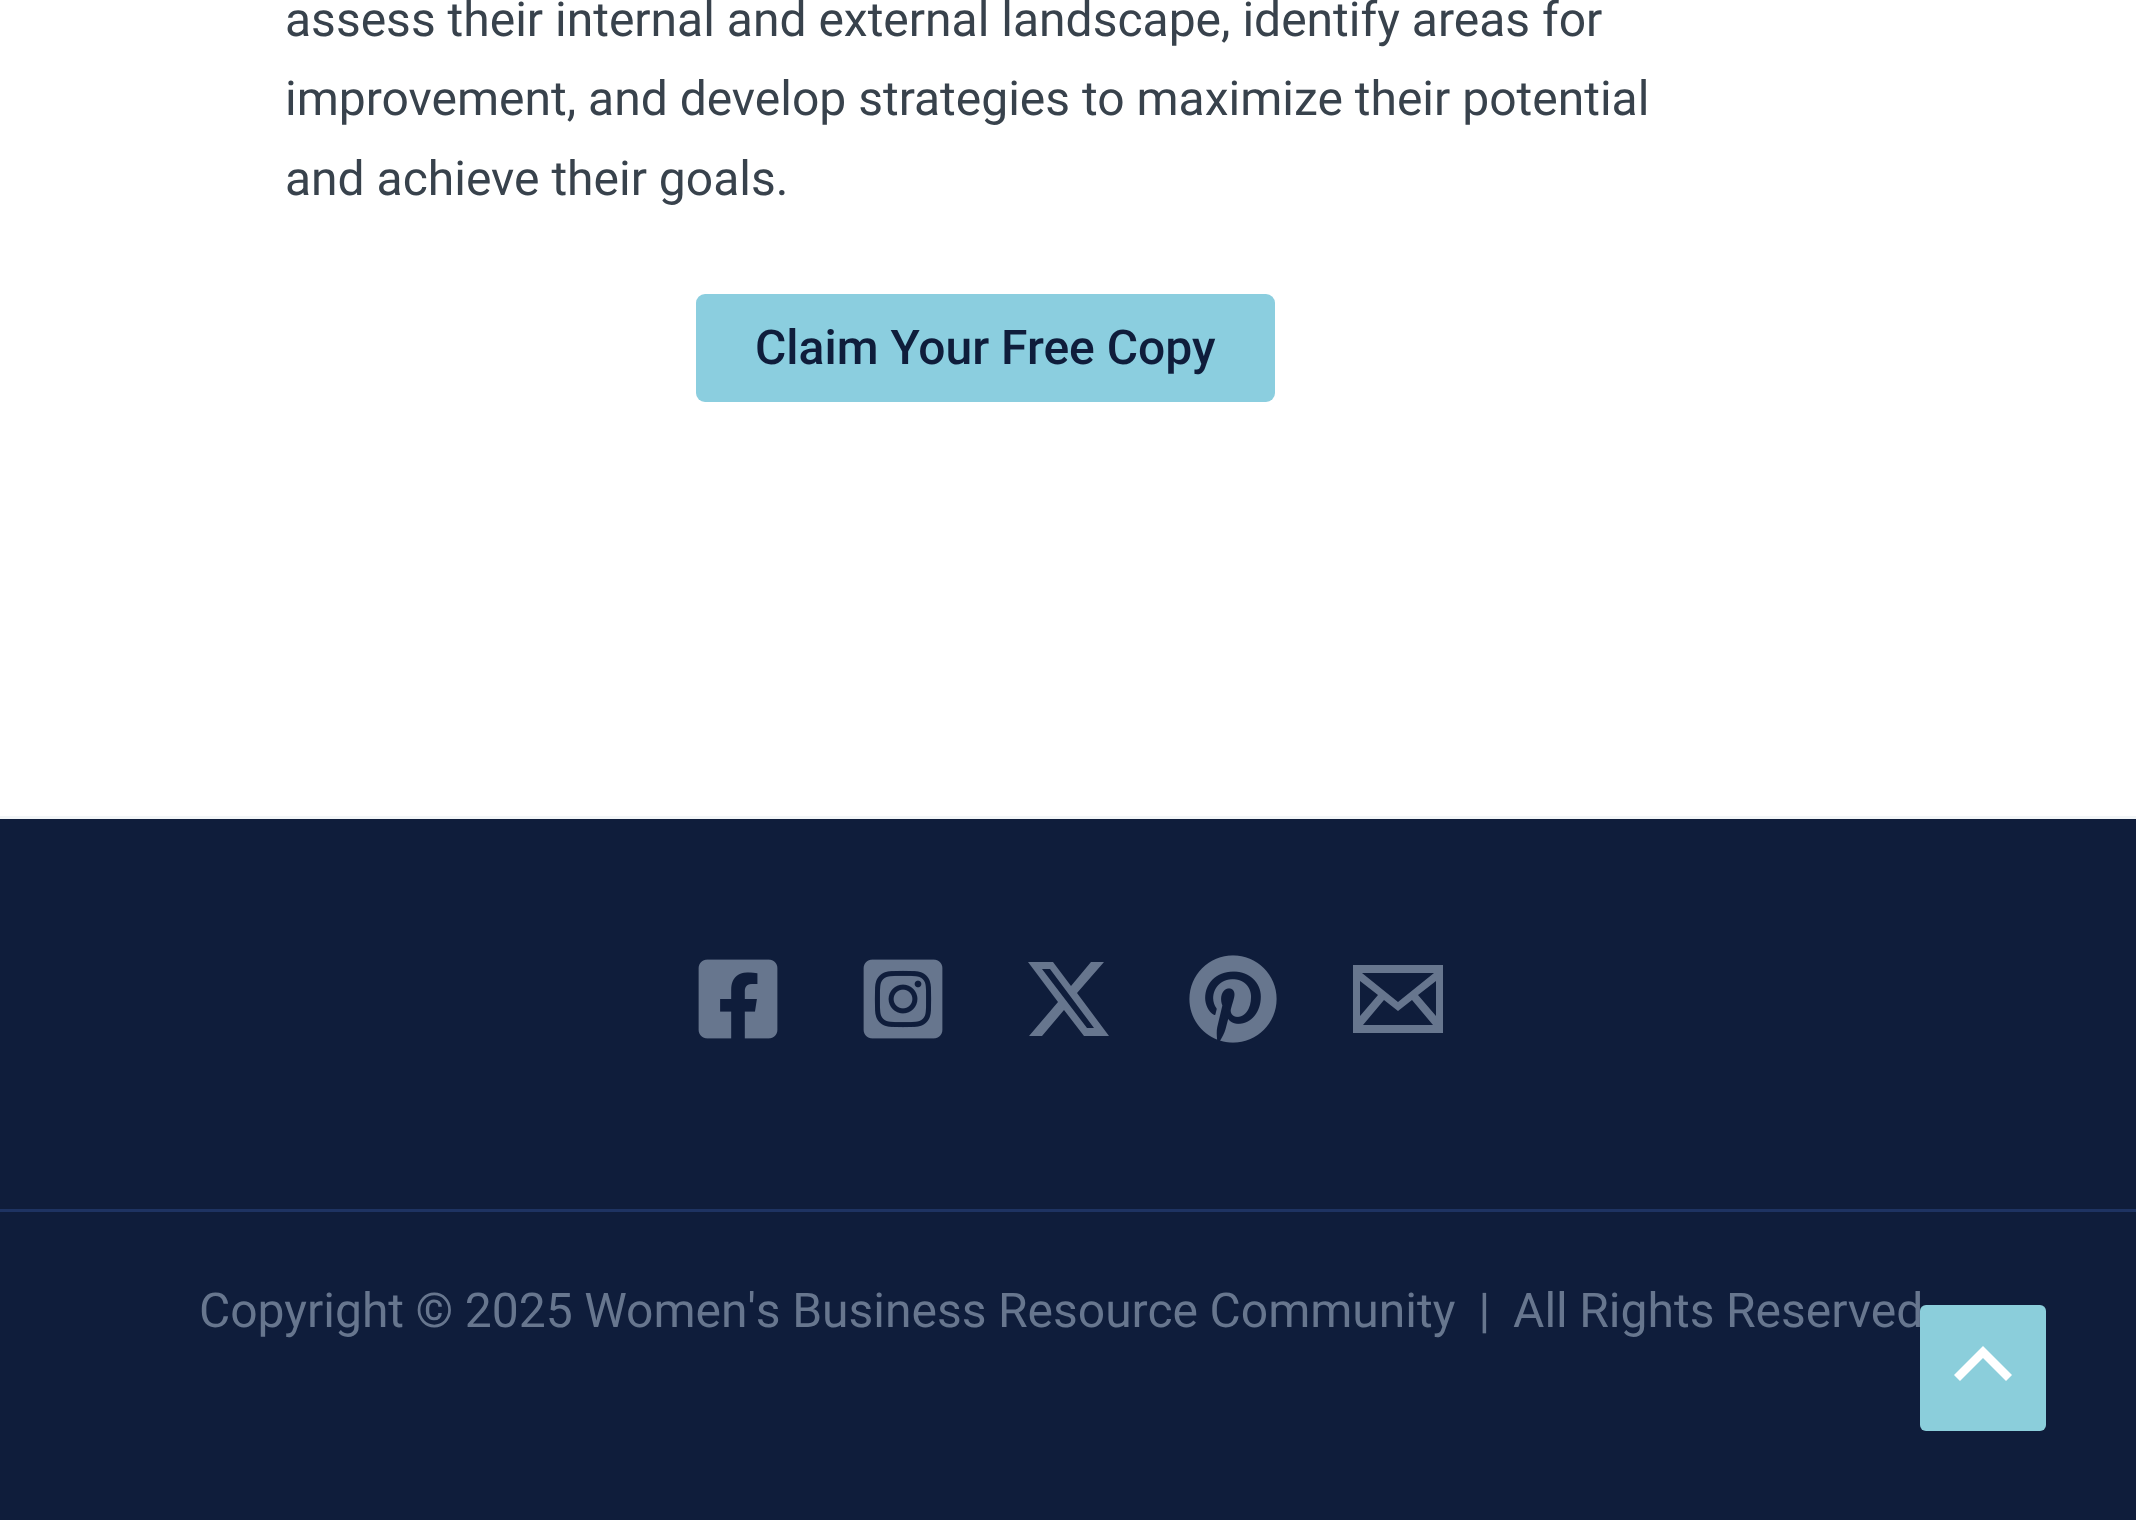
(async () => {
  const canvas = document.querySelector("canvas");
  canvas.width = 2136;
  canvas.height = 1520;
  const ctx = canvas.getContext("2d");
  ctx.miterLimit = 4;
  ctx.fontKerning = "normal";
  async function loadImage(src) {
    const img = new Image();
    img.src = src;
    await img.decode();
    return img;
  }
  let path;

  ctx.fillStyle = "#ffffff";
  ctx.fillRect(0, 0, 2136, 1520);
  ctx.fillStyle = "#8bcedf";
  ctx.beginPath();
  ctx.roundRect(696, 294, 579, 108, 9);
  ctx.fill();
  ctx.fillStyle = "#0f1d3b";
  ctx.fillRect(0, 819, 2136, 390);
  ctx.fillStyle = "#f2f5f7";
  ctx.fillRect(0, 816, 2136, 3);
  ctx.drawImage(await loadImage("img/1.png"), 698, 959, 80, 80);
  ctx.drawImage(await loadImage("img/2.png"), 863, 959, 80, 80);
  ctx.fillStyle = "#67768e";
  path = new Path2D("M1091 962H1104L1077 993L1109 1036H1084L1064 1010L1042 1036H1029L1058 1002L1028 962H1053L1071 986ZM1087 1028H1094L1050 969H1042Z");
  ctx.fill(path);
  ctx.drawImage(await loadImage("img/3.png"), 1189, 955, 88, 88);
  path = new Path2D("M1353 965V1033H1443V965ZM1378 995L1360 1016V981ZM1362 973H1434L1398 1002ZM1384 1000L1398 1011L1412 1000L1433 1025H1363ZM1418 995L1436 981V1016Z");
  ctx.fill(path);
  ctx.fillStyle = "#0f1d3b";
  ctx.fillRect(0, 1212, 2136, 308);
  ctx.fillStyle = "#1e3362";
  ctx.fillRect(0, 1209, 2136, 3);
  ctx.font = "48px Roboto";
  ctx.fillStyle = "#38424c";
  for (const [text, x, y] of [
    ["assess their internal and external landscape, identify areas for", 285, 36],
    ["improvement, and develop strategies to maximize their potential", 285, 115],
    ["and achieve their goals.", 285, 195],
  ]) {
    ctx.fillText(text, x, y);
  }
  ctx.font = "500 48px Roboto";
  ctx.fillStyle = "#0f1d3b";
  ctx.fillText("Claim Your Free Copy", 755, 364);
  ctx.wordSpacing = "-0.4px";
  ctx.font = "48px Roboto";
  ctx.fillStyle = "#67768e";
  ctx.fillText("Copyright © 2025 Women's Business Resource Community  |  All Rights Reserved", 199, 1327);
  ctx.fillStyle = "#8bcedb";
  ctx.beginPath();
  ctx.roundRect(1920, 1305, 126, 126, 6);
  ctx.fill();
  ctx.fillStyle = "#ffffff";
  path = new Path2D("M2012 1375L1983 1346L1954 1375L1960 1381L1983 1358L2006 1381Z");
  ctx.fill(path);
})();
